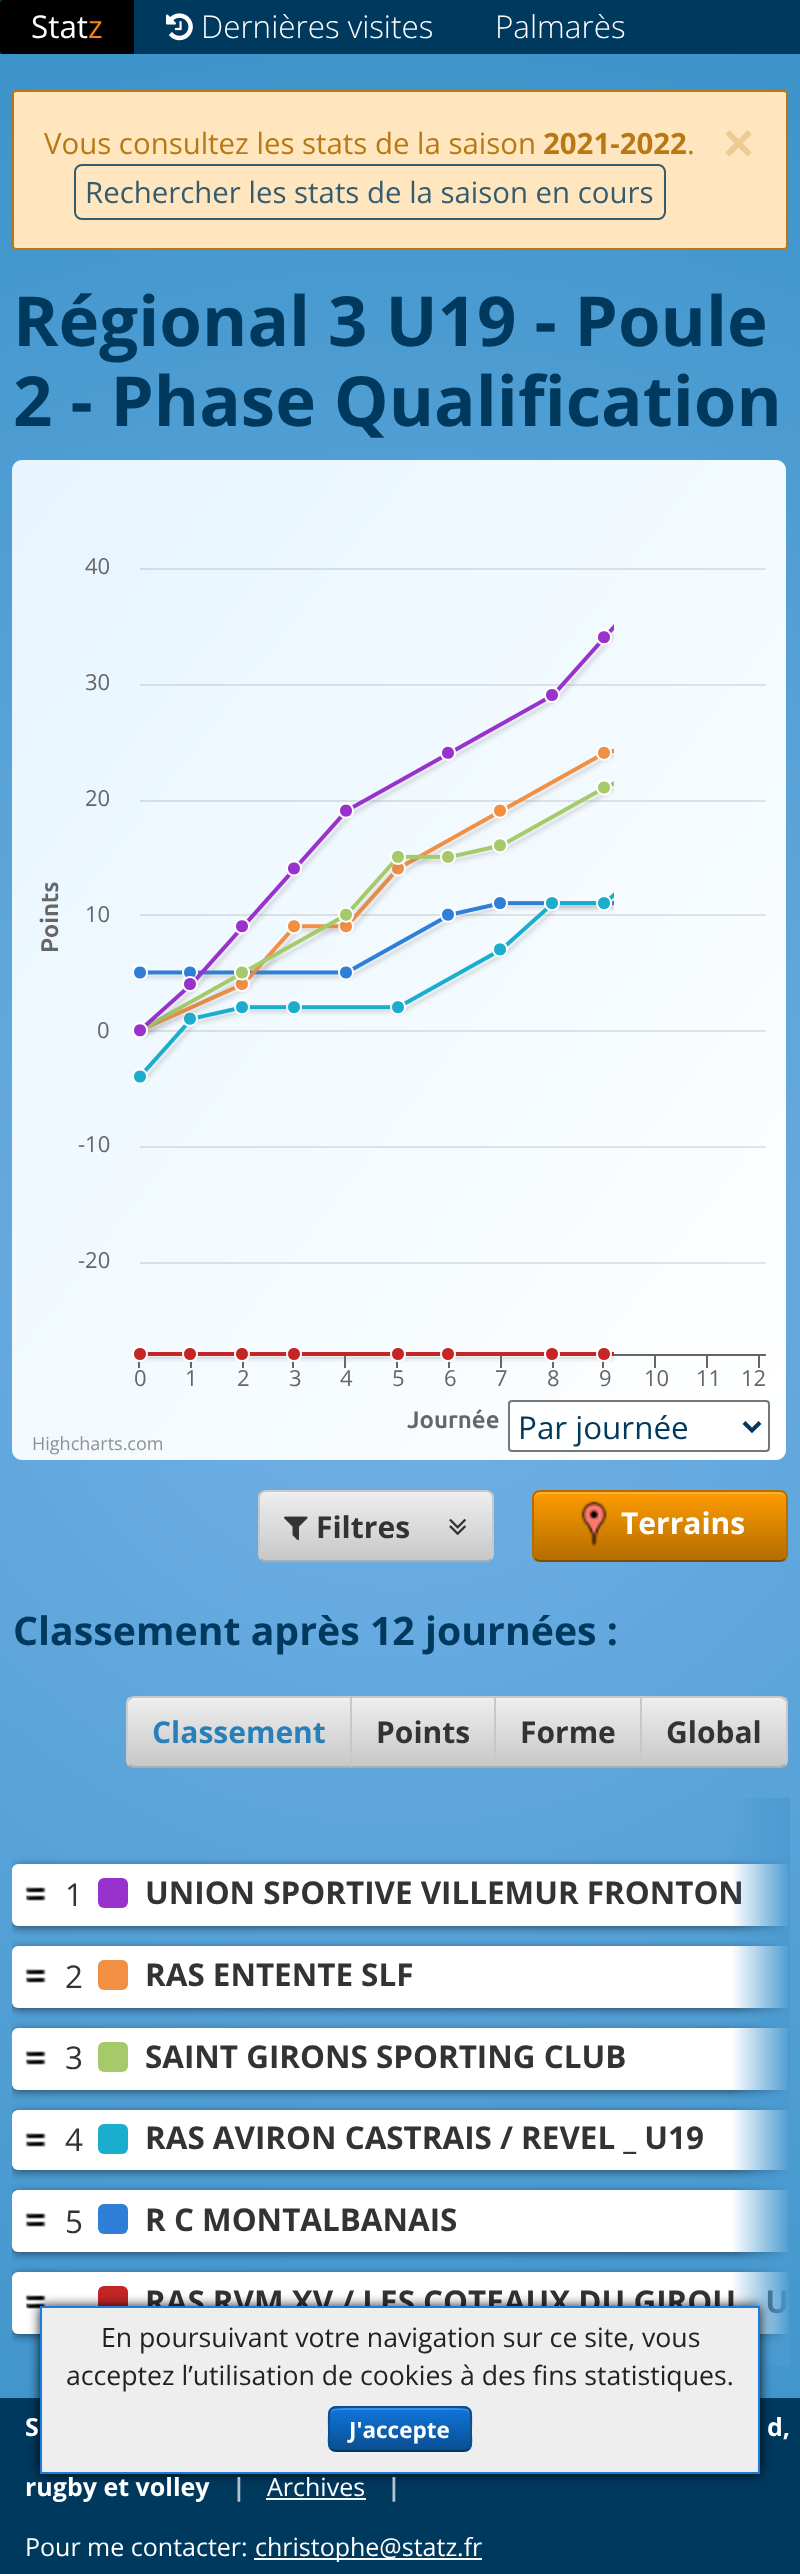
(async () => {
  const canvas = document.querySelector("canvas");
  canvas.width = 800;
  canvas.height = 2574;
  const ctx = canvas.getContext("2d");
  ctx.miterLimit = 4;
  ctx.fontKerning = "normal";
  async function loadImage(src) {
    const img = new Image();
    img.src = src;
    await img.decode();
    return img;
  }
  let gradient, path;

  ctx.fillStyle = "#ffffff";
  ctx.fillRect(0, 0, 800, 2574);
  gradient = ctx.createRadialGradient(400, 1287, 0, 400, 1287, 1348);
  gradient.addColorStop(0, "#74b2e8");
  gradient.addColorStop(1, "#3a92c8");
  ctx.fillStyle = gradient;
  ctx.fillRect(0, 54, 800, 2344);
  ctx.fillStyle = "#00395e";
  ctx.fillRect(0, 0, 800, 54);
  ctx.fillStyle = "#000000";
  ctx.beginPath();
  ctx.roundRect(0, 0, 134, 54, [4, 0, 0, 4]);
  ctx.fill();
  ctx.drawImage(await loadImage("img/1.png"), 166, 13, 27, 28);
  ctx.fillStyle = "#ffe6bf";
  ctx.beginPath();
  ctx.roundRect(13, 91, 774, 158, 3);
  ctx.fill();
  ctx.strokeStyle = "#b87814";
  ctx.lineWidth = 2;
  ctx.stroke();
  ctx.beginPath();
  ctx.roundRect(75, 165, 590, 54, 7);
  ctx.strokeStyle = "#335c71";
  ctx.stroke();
  ctx.drawImage(await loadImage("img/2.png"), 12, 460, 774, 1000);
  ctx.fillStyle = "#ffffff";
  ctx.beginPath();
  ctx.roundRect(509, 1401, 260, 50, 3);
  ctx.fill();
  ctx.strokeStyle = "#767676";
  ctx.stroke();
  path = new Path2D("M744 1422.5L752 1430.5L760 1422.5");
  ctx.strokeStyle = "#00395e";
  ctx.lineWidth = 4;
  ctx.stroke(path);
  ctx.save();
  ctx.beginPath();
  ctx.roundRect(258, 1490, 236, 72, 8);
  ctx.clip();
  gradient = ctx.createLinearGradient(376, 1492, 376, 1560);
  gradient.addColorStop(0, "#eeeeee");
  gradient.addColorStop(1, "#c8c8c8");
  ctx.fillStyle = gradient;
  ctx.fillRect(258, 1492, 236, 68);
  ctx.restore();
  ctx.fillStyle = "rgba(255, 255, 255, 0.2)";
  path = new Path2D("M266 1494H486C489 1494 492 1497 492 1500V1498C492 1495 489 1492 486 1492H266C263 1492 260 1495 260 1498V1500C260 1497 263 1494 266 1494Z");
  ctx.fill(path);
  path = new Path2D("M491 1559C489.5 1560.5 488 1561 486 1561H266C264 1561 262.5 1560.5 261 1559");
  ctx.strokeStyle = "#aeaeae";
  ctx.lineWidth = 2;
  ctx.stroke(path);
  path = new Path2D("M261 1559C259.5 1557.5 259 1556 259 1554V1498C259 1496 259.5 1494.5 261 1493C262.5 1491.5 264 1491 266 1491H486C488 1491 489.5 1491.5 491 1493C492.5 1494.5 493 1496 493 1498V1554C493 1556 492.5 1557.5 491 1559");
  ctx.strokeStyle = "#c8c8c8";
  ctx.stroke(path);
  ctx.drawImage(await loadImage("img/3.png"), 284, 1516, 24, 25);
  ctx.drawImage(await loadImage("img/4.png"), 449, 1519, 17, 16);
  ctx.save();
  ctx.beginPath();
  ctx.roundRect(532, 1490, 256, 72, 8);
  ctx.clip();
  gradient = ctx.createLinearGradient(660, 1492, 660, 1560);
  gradient.addColorStop(0, "#ff9c00");
  gradient.addColorStop(1, "#b36d00");
  ctx.fillStyle = gradient;
  ctx.fillRect(532, 1492, 256, 68);
  ctx.restore();
  path = new Path2D("M540 1494H780C783 1494 786 1497 786 1500C786 1497 785 1493 781 1492H540C535 1492 534 1496 534 1500C534 1497 537 1494 540 1494Z");
  ctx.fill(path);
  path = new Path2D("M785 1559C783.5 1560.5 782 1561 780 1561H540C538 1561 536.5 1560.5 535 1559");
  ctx.strokeStyle = "#804e00";
  ctx.stroke(path);
  path = new Path2D("M535 1559C533.5 1557.5 533 1556 533 1554V1498C533 1496 533.5 1494.5 535 1493C536.5 1491.5 538 1491 540 1491H780C782 1491 783.5 1491.5 785 1493C786.5 1494.5 787 1496 787 1498V1554C787 1556 786.5 1557.5 785 1559");
  ctx.strokeStyle = "#b36d00";
  ctx.stroke(path);
  ctx.drawImage(await loadImage("img/5.png"), 581, 1501, 26, 46);
  ctx.save();
  ctx.beginPath();
  ctx.roundRect(126, 1696, 226, 72, [8, 0, 0, 8]);
  ctx.clip();
  gradient = ctx.createLinearGradient(239, 1698, 239, 1766);
  gradient.addColorStop(0, "#eeeeee");
  gradient.addColorStop(1, "#c8c8c8");
  ctx.fillStyle = gradient;
  ctx.fillRect(126, 1698, 224, 68);
  ctx.restore();
  path = new Path2D("M134 1700H350V1698H134C131 1698 128 1701 128 1704V1706C128 1703 131 1700 134 1700Z");
  ctx.fill(path);
  ctx.fillStyle = "#c8c8c8";
  path = new Path2D("M134 1696C132 1696 130 1697 128 1698L130 1700L133 1698H350L352 1696Z");
  ctx.fill(path);
  path = new Path2D("M352 1696L350 1698V1766L352 1768Z");
  ctx.fill(path);
  ctx.fillStyle = "#aeaeae";
  path = new Path2D("M352 1768L350 1766H133L130 1764L128 1766C130 1767 132 1768 134 1768Z");
  ctx.fill(path);
  ctx.fillStyle = "#cccccc";
  path = new Path2D("M126 1704V1760C126 1762 127 1764 128 1766L130 1764C129 1763 128 1762 128 1760V1704C128 1702 129 1701 130 1700L128 1698C127 1700 126 1702 126 1704Z");
  ctx.fill(path);
  gradient = ctx.createLinearGradient(423, 1630, 423, 1698);
  gradient.addColorStop(0, "#eeeeee");
  gradient.addColorStop(1, "#c8c8c8");
  ctx.fillStyle = gradient;
  ctx.fillRect(352, 1696, 144, 2);
  gradient = ctx.createLinearGradient(423, 1698, 423, 1766);
  gradient.addColorStop(0, "#eeeeee");
  gradient.addColorStop(1, "#c8c8c8");
  ctx.fillStyle = gradient;
  ctx.fillRect(352, 1700, 142, 66);
  for (const [x, y, w, h, color] of [
    [352, 1698, 142, 2, "#f1f1f1"],
    [494, 1696, 2, 72, "#c8c8c8"],
    [352, 1766, 144, 2, "#aeaeae"],
  ]) {
    ctx.fillStyle = color;
    ctx.fillRect(x, y, w, h);
  }
  gradient = ctx.createLinearGradient(568, 1630, 568, 1698);
  gradient.addColorStop(0, "#eeeeee");
  gradient.addColorStop(1, "#c8c8c8");
  ctx.fillStyle = gradient;
  ctx.fillRect(496, 1696, 146, 2);
  gradient = ctx.createLinearGradient(568, 1698, 568, 1766);
  gradient.addColorStop(0, "#eeeeee");
  gradient.addColorStop(1, "#c8c8c8");
  ctx.fillStyle = gradient;
  ctx.fillRect(496, 1700, 144, 66);
  for (const [x, y, w, h, color] of [
    [496, 1698, 144, 2, "#f1f1f1"],
    [640, 1696, 2, 72, "#c8c8c8"],
    [496, 1766, 146, 2, "#aeaeae"],
  ]) {
    ctx.fillStyle = color;
    ctx.fillRect(x, y, w, h);
  }
  ctx.save();
  ctx.beginPath();
  ctx.roundRect(642, 1696, 146, 72, [0, 8, 8, 0]);
  ctx.clip();
  gradient = ctx.createLinearGradient(714, 1698, 714, 1766);
  gradient.addColorStop(0, "#eeeeee");
  gradient.addColorStop(1, "#c8c8c8");
  ctx.fillStyle = gradient;
  ctx.fillRect(642, 1698, 146, 68);
  ctx.restore();
  ctx.fillStyle = "rgba(255, 255, 255, 0.2)";
  path = new Path2D("M642 1700H780C783 1700 786 1703 786 1706V1704C786 1701 783 1698 780 1698H642Z");
  ctx.fill(path);
  ctx.fillStyle = "#c8c8c8";
  path = new Path2D("M642 1696V1698H781L784 1700L786 1698C784 1697 782 1696 780 1696Z");
  ctx.fill(path);
  path = new Path2D("M784 1764C785 1763 786 1762 786 1760V1704C786 1702 785 1701 784 1700L786 1698C787 1700 788 1702 788 1704V1760C788 1762 787 1764 786 1766Z");
  ctx.fill(path);
  ctx.fillStyle = "#aeaeae";
  path = new Path2D("M642 1766V1768H780C782 1768 784 1767 786 1766L784 1764L781 1766Z");
  ctx.fill(path);
  ctx.save();
  ctx.beginPath();
  ctx.rect(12, 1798, 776, 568);
  ctx.clip();
  ctx.fillStyle = "rgba(0, 0, 0, 0.5)";
  ctx.filter = "blur(4px)";
  ctx.beginPath();
  ctx.roundRect(12, 1866, 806, 62, 6);
  ctx.fill();
  ctx.filter = "none";
  ctx.restore();
  ctx.fillStyle = "#ffffff";
  ctx.beginPath();
  ctx.roundRect(12, 1864, 776, 62, [6, 0, 0, 6]);
  ctx.fill();
  ctx.drawImage(await loadImage("img/7.png"), 24, 1886, 22, 15);
  ctx.fillStyle = "#9932cc";
  ctx.beginPath();
  ctx.roundRect(98, 1878, 30, 30, 6);
  ctx.fill();
  ctx.save();
  ctx.beginPath();
  ctx.rect(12, 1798, 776, 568);
  ctx.clip();
  ctx.fillStyle = "rgba(0, 0, 0, 0.5)";
  ctx.filter = "blur(4px)";
  ctx.beginPath();
  ctx.roundRect(12, 1948, 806, 62, 6);
  ctx.fill();
  ctx.filter = "none";
  ctx.restore();
  ctx.fillStyle = "#ffffff";
  ctx.beginPath();
  ctx.roundRect(12, 1946, 776, 62, [6, 0, 0, 6]);
  ctx.fill();
  ctx.drawImage(await loadImage("img/7.png"), 24, 1968, 22, 15);
  ctx.fillStyle = "#f28f43";
  ctx.beginPath();
  ctx.roundRect(98, 1960, 30, 30, 6);
  ctx.fill();
  ctx.save();
  ctx.beginPath();
  ctx.rect(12, 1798, 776, 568);
  ctx.clip();
  ctx.fillStyle = "rgba(0, 0, 0, 0.5)";
  ctx.filter = "blur(4px)";
  ctx.beginPath();
  ctx.roundRect(12, 2030, 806, 62, 6);
  ctx.fill();
  ctx.filter = "none";
  ctx.restore();
  ctx.fillStyle = "#ffffff";
  ctx.beginPath();
  ctx.roundRect(12, 2028, 776, 62, [6, 0, 0, 6]);
  ctx.fill();
  ctx.drawImage(await loadImage("img/7.png"), 24, 2050, 22, 15);
  ctx.fillStyle = "#a6c96a";
  ctx.beginPath();
  ctx.roundRect(98, 2042, 30, 30, 6);
  ctx.fill();
  ctx.save();
  ctx.beginPath();
  ctx.rect(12, 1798, 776, 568);
  ctx.clip();
  ctx.fillStyle = "rgba(0, 0, 0, 0.5)";
  ctx.filter = "blur(4px)";
  ctx.beginPath();
  ctx.roundRect(12, 2112, 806, 60, 6);
  ctx.fill();
  ctx.filter = "none";
  ctx.restore();
  ctx.fillStyle = "#ffffff";
  ctx.beginPath();
  ctx.roundRect(12, 2110, 776, 60, [6, 0, 0, 6]);
  ctx.fill();
  ctx.drawImage(await loadImage("img/7.png"), 24, 2132, 22, 15);
  ctx.fillStyle = "#1aadce";
  ctx.beginPath();
  ctx.roundRect(98, 2124, 30, 30, 6);
  ctx.fill();
  ctx.save();
  ctx.beginPath();
  ctx.rect(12, 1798, 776, 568);
  ctx.clip();
  ctx.fillStyle = "rgba(0, 0, 0, 0.5)";
  ctx.filter = "blur(4px)";
  ctx.beginPath();
  ctx.roundRect(12, 2192, 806, 62, 6);
  ctx.fill();
  ctx.filter = "none";
  ctx.restore();
  ctx.fillStyle = "#ffffff";
  ctx.beginPath();
  ctx.roundRect(12, 2190, 776, 62, [6, 0, 0, 6]);
  ctx.fill();
  ctx.drawImage(await loadImage("img/7.png"), 24, 2212, 22, 15);
  ctx.fillStyle = "#2f7ed8";
  ctx.beginPath();
  ctx.roundRect(98, 2204, 30, 30, 6);
  ctx.fill();
  ctx.save();
  ctx.beginPath();
  ctx.rect(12, 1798, 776, 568);
  ctx.clip();
  ctx.fillStyle = "rgba(0, 0, 0, 0.5)";
  ctx.filter = "blur(4px)";
  ctx.beginPath();
  ctx.roundRect(12, 2274, 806, 62, 6);
  ctx.fill();
  ctx.filter = "none";
  ctx.restore();
  ctx.fillStyle = "#ffffff";
  ctx.beginPath();
  ctx.roundRect(12, 2272, 776, 62, [6, 0, 0, 6]);
  ctx.fill();
  ctx.drawImage(await loadImage("img/7.png"), 24, 2294, 22, 15);
  ctx.fillStyle = "#c42525";
  ctx.beginPath();
  ctx.roundRect(98, 2286, 30, 30, 6);
  ctx.fill();
  for (const [x, y, w, h, color] of [
    [0, 2398, 800, 176, "#00395e"],
    [266, 2498, 100, 2, "#ffffff"],
    [254, 2558, 228, 2, "#ffffff"],
  ]) {
    ctx.fillStyle = color;
    ctx.fillRect(x, y, w, h);
  }
  ctx.font = "31.4px Open Sans";
  ctx.fillText("Stat", 31, 38);
  ctx.fillStyle = "#f98311";
  ctx.fillText("z", 88, 38);
  ctx.font = "300 31.4px Open Sans";
  ctx.fillStyle = "#ffffff";
  ctx.fillText("Dernières visites", 201, 38);
  ctx.fillText("Palmarès", 495, 38);
  ctx.font = "29.4px Open Sans";
  ctx.fillStyle = "#b87814";
  ctx.fillText("Vous consultez les stats de la saison", 44, 154);
  ctx.font = "bold 29.4px Open Sans";
  ctx.fillText("2021-2022", 543, 154);
  ctx.font = "29.4px Open Sans";
  ctx.fillText(".", 687, 154);
  ctx.fillStyle = "#335c71";
  ctx.fillText("Rechercher les stats de la saison en cours", 85, 203);
  ctx.font = "bold 53px Liberation Sans";
  ctx.fillStyle = "#edcb94";
  ctx.fillText("×", 723, 161);
  ctx.font = "bold 69px Open Sans";
  ctx.fillStyle = "#00395e";
  ctx.fillText("Régional 3 U19 - Poule", 13, 346);
  ctx.fillText("2 - Phase Qualification", 13, 426);
  ctx.font = "22px Open Sans";
  ctx.fillStyle = "#666666";
  for (const [text, x, y] of [
    ["40", 85, 574],
    ["30", 85, 690],
    ["20", 85, 806],
  ]) {
    ctx.fillText(text, x, y);
  }
  ctx.font = "bold 24px Ubuntu";
  ctx.save();
  ctx.translate(58, 953);
  ctx.rotate(-90 * Math.PI / 180);
  ctx.fillText("Points", 0, 0);
  ctx.restore();
  ctx.font = "22px Open Sans";
  for (const [text, x, y] of [
    ["10", 85, 922],
    ["0", 97, 1038],
    ["-10", 78, 1152],
    ["-20", 78, 1268],
    ["0", 134, 1386],
    ["1", 185, 1386],
    ["2", 237, 1386],
    ["3", 289, 1386],
    ["4", 340, 1386],
    ["5", 392, 1386],
    ["6", 444, 1386],
    ["7", 495, 1386],
    ["8", 547, 1386],
    ["9", 599, 1386],
    ["10", 644, 1386],
    ["11", 696, 1386],
    ["12", 741, 1386],
  ]) {
    ctx.fillText(text, x, y);
  }
  ctx.font = "bold 24px Ubuntu";
  ctx.fillText("Journée", 407, 1428);
  ctx.font = "18px Open Sans";
  ctx.fillStyle = "#909090";
  ctx.fillText("Highcharts.com", 32, 1450);
  ctx.font = "31.4px Open Sans";
  ctx.fillStyle = "#00395e";
  ctx.fillText("Par journée", 518, 1439);
  ctx.font = "bold 30px Open Sans";
  ctx.fillStyle = "#333333";
  ctx.fillText("Filtres", 316, 1538);
  ctx.fillStyle = "#ffffff";
  ctx.fillText("Terrains", 621, 1534);
  ctx.font = "bold 39.25px Open Sans";
  ctx.fillStyle = "#00395e";
  ctx.fillText("Classement après 12 journées :", 13, 1645);
  ctx.font = "bold 30px Open Sans";
  ctx.fillStyle = "#2980b9";
  ctx.fillText("Classement", 152, 1743);
  ctx.fillStyle = "#333333";
  for (const [text, x, y] of [
    ["Points", 376, 1743],
    ["Forme", 520, 1743],
    ["Global", 666, 1743],
  ]) {
    ctx.fillText(text, x, y);
  }
  ctx.font = "31.4px Open Sans";
  ctx.fillText("1", 65, 1906);
  ctx.font = "bold 31.4px Open Sans";
  ctx.fillText("UNION SPORTIVE VILLEMUR FRONTON", 145, 1904);
  ctx.font = "31.4px Open Sans";
  ctx.fillText("2", 65, 1988);
  ctx.font = "bold 31.4px Open Sans";
  ctx.fillText("RAS ENTENTE SLF", 145, 1986);
  ctx.font = "31.4px Open Sans";
  ctx.fillText("3", 65, 2069);
  ctx.font = "bold 31.4px Open Sans";
  ctx.fillText("SAINT GIRONS SPORTING CLUB", 145, 2068);
  ctx.font = "31.4px Open Sans";
  ctx.fillText("4", 65, 2151);
  ctx.font = "bold 31.4px Open Sans";
  ctx.fillText("RAS AVIRON CASTRAIS / REVEL _ U19", 145, 2149);
  ctx.font = "31.4px Open Sans";
  ctx.fillText("5", 65, 2233);
  ctx.font = "bold 31.4px Open Sans";
  ctx.fillText("R C MONTALBANAIS", 145, 2231);
  ctx.fillText("RAS RVM XV / LES COTEAUX DU GIROU _ U", 145, 2313);
  ctx.drawImage(await loadImage("img/6.png"), 733, 1798, 57, 568);
  ctx.fillStyle = "rgba(0, 0, 0, 0.9)";
  ctx.filter = "blur(6px)";
  ctx.beginPath();
  ctx.rect(40, 2306, 720, 168);
  ctx.fill();
  ctx.filter = "none";
  ctx.fillStyle = "#eeeeee";
  ctx.beginPath();
  ctx.rect(41, 2307, 718, 166);
  ctx.fill();
  ctx.strokeStyle = "#197cde";
  ctx.stroke();
  ctx.font = "26.65px Open Sans";
  ctx.fillStyle = "#222222";
  ctx.fillText("En poursuivant votre navigation sur ce site, vous", 101, 2347);
  ctx.fillText("acceptez l’utilisation de cookies à des fins statistiques.", 66, 2385);
  ctx.save();
  ctx.beginPath();
  ctx.roundRect(328, 2406, 144, 46, 8);
  ctx.clip();
  gradient = ctx.createLinearGradient(400, 2366, 400, 2408);
  gradient.addColorStop(0, "#0f75da");
  gradient.addColorStop(1, "#0a4f92");
  ctx.fillStyle = gradient;
  ctx.fillRect(328, 2406, 144, 2);
  gradient = ctx.createLinearGradient(400, 2408, 400, 2450);
  gradient.addColorStop(0, "#0f75da");
  gradient.addColorStop(1, "#0a4f92");
  ctx.fillStyle = gradient;
  ctx.fillRect(328, 2408, 144, 42);
  ctx.restore();
  ctx.fillStyle = "rgba(255, 255, 255, 0.2)";
  path = new Path2D("M336 2410H464C467 2410 470 2413 470 2416V2414C470 2411 467 2408 464 2408H336C333 2408 330 2411 330 2414V2416C330 2413 333 2410 336 2410Z");
  ctx.fill(path);
  path = new Path2D("M469 2449C467.5 2450.5 466 2451 464 2451H336C334 2451 332.5 2450.5 331 2449");
  ctx.strokeStyle = "#073563";
  ctx.stroke(path);
  path = new Path2D("M331 2449C327.5 2445.5 329 2438.5 329 2434C329 2403.5 325 2407 357.5 2407H442.5C475 2407 471 2403.5 471 2434C471 2438.5 472.5 2445.5 469 2449");
  ctx.strokeStyle = "#0a4f92";
  ctx.stroke(path);
  ctx.font = "bold 22.5px Open Sans";
  ctx.fillStyle = "#ffffff";
  ctx.fillText("J'accepte", 349, 2438);
  ctx.font = "bold 25px Open Sans";
  for (const [text, x, y] of [
    ["S", 25, 2436],
    ["d,", 767, 2436],
    ["rugby et volley", 25, 2496],
  ]) {
    ctx.fillText(text, x, y);
  }
  ctx.fillStyle = "#b3c4cf";
  ctx.fillText("|", 232, 2496);
  ctx.font = "25px Open Sans";
  ctx.fillStyle = "#ffffff";
  ctx.fillText("Archives", 267, 2496);
  ctx.font = "bold 25px Open Sans";
  ctx.fillStyle = "#b3c4cf";
  ctx.fillText("|", 387, 2496);
  ctx.font = "25px Open Sans";
  ctx.fillStyle = "#ffffff";
  ctx.fillText("Pour me contacter:", 25, 2556);
  ctx.fillText("christophe@statz.fr", 255, 2556);
})();
